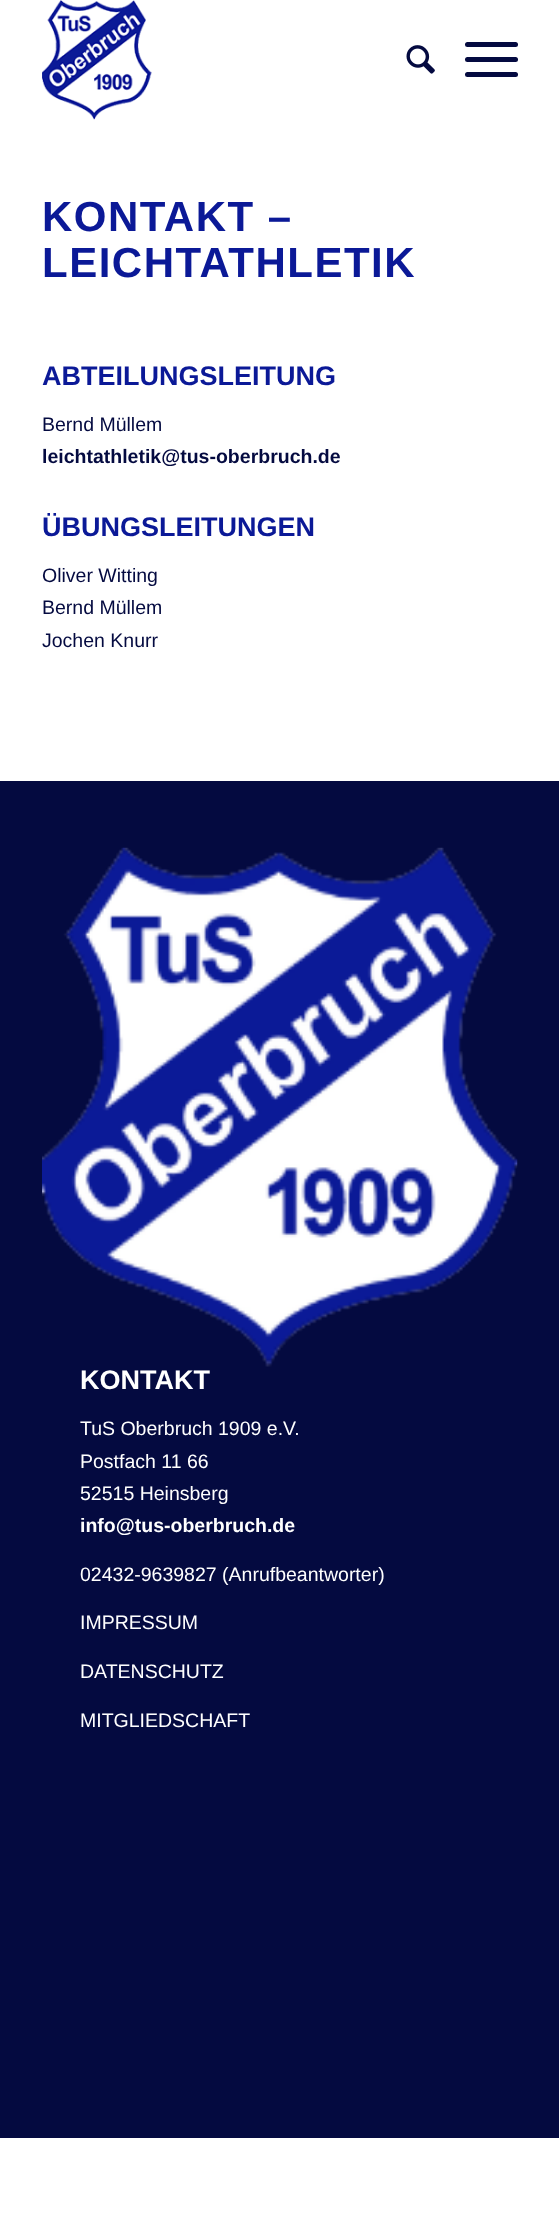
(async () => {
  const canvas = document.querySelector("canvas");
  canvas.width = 559;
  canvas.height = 2228;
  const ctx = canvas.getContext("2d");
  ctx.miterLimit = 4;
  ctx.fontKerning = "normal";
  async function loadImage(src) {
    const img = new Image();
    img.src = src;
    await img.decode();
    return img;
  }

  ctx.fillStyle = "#ffffff";
  ctx.fillRect(0, 0, 559, 2228);
  ctx.drawImage(await loadImage("img/1.png"), 42, 0, 110, 120);
  ctx.drawImage(await loadImage("img/2.png"), 406, 45, 29, 29);
  ctx.fillStyle = "#040a40";
  ctx.beginPath();
  ctx.roundRect(465, 57, 53, 5, 2.5);
  ctx.fill();
  ctx.beginPath();
  ctx.roundRect(465, 42, 53, 5, 2.5);
  ctx.fill();
  ctx.beginPath();
  ctx.roundRect(465, 72, 53, 5, 2.5);
  ctx.fill();
  ctx.fillRect(0, 781, 559, 1357);
  ctx.drawImage(await loadImage("img/3.png"), 42, 847, 476, 520);
  ctx.letterSpacing = "1.5px";
  ctx.font = "bold 42px Liberation Sans";
  ctx.fillStyle = "#0b1997";
  ctx.fillText("KONTAKT –", 42, 231);
  ctx.fillText("LEICHTATHLETIK", 42, 277);
  ctx.letterSpacing = "0px";
  ctx.font = "bold 27px Liberation Sans";
  ctx.fillText("ABTEILUNGSLEITUNG", 42, 385);
  ctx.font = "19.5px Liberation Sans";
  ctx.fillStyle = "#040a40";
  ctx.fillText("Bernd Müllem", 42, 431);
  ctx.font = "bold 19.5px Liberation Sans";
  ctx.fillText("leichtathletik@tus-oberbruch.de", 42, 463);
  ctx.font = "bold 27px Liberation Sans";
  ctx.fillStyle = "#0b1997";
  ctx.fillText("ÜBUNGSLEITUNGEN", 42, 536);
  ctx.font = "19.5px Liberation Sans";
  ctx.fillStyle = "#040a40";
  for (const [text, x, y] of [
    ["Oliver Witting", 42, 582],
    ["Bernd Müllem", 42, 614],
    ["Jochen Knurr", 42, 647],
  ]) {
    ctx.fillText(text, x, y);
  }
  ctx.font = "bold 27px Liberation Sans";
  ctx.fillStyle = "#ffffff";
  ctx.fillText("KONTAKT", 80, 1389);
  ctx.font = "19.5px Liberation Sans";
  for (const [text, x, y] of [
    ["TuS Oberbruch 1909 e.V.", 80, 1435],
    ["Postfach 11 66", 80, 1468],
    ["52515 Heinsberg", 80, 1500],
  ]) {
    ctx.fillText(text, x, y);
  }
  ctx.font = "bold 19.5px Liberation Sans";
  ctx.fillText("info@tus-oberbruch.de", 80, 1532);
  ctx.font = "19.5px Liberation Sans";
  for (const [text, x, y] of [
    ["02432-9639827 (Anrufbeantworter)", 80, 1581],
    ["IMPRESSUM", 80, 1629],
    ["DATENSCHUTZ", 80, 1678],
    ["MITGLIEDSCHAFT", 80, 1727],
  ]) {
    ctx.fillText(text, x, y);
  }
})();
